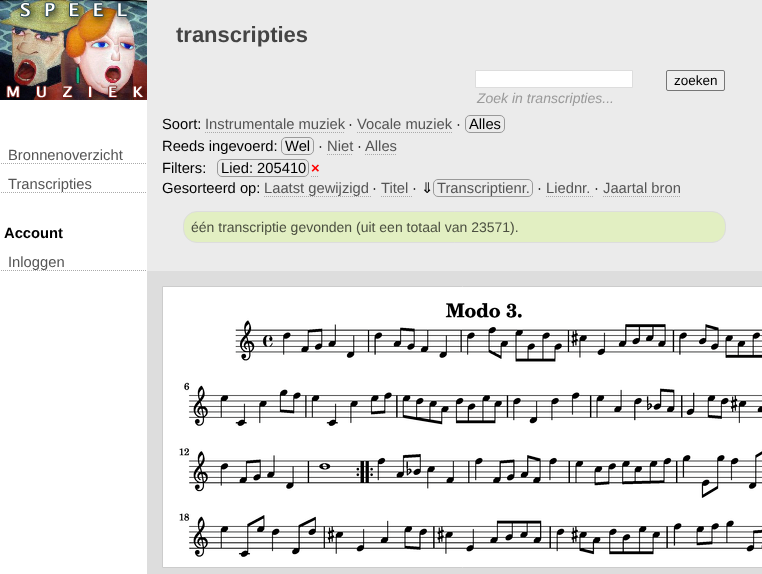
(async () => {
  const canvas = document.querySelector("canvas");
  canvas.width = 762;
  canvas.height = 574;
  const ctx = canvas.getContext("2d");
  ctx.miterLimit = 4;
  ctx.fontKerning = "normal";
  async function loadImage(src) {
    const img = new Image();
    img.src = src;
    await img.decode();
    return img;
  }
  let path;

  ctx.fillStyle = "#ffffff";
  ctx.fillRect(0, 0, 762, 574);
  ctx.drawImage(await loadImage("img/1.png"), 0, 0, 147, 100);
  ctx.fillStyle = "#ebebeb";
  ctx.fillRect(147, 0, 615, 271);
  ctx.fillStyle = "#ffffff";
  ctx.beginPath();
  ctx.rect(475.5, 70.5, 157, 17);
  ctx.fill();
  ctx.strokeStyle = "#dddddd";
  ctx.stroke();
  ctx.fillStyle = "#efefef";
  ctx.beginPath();
  ctx.roundRect(666.5, 70.5, 58, 20, 1.5);
  ctx.fill();
  ctx.strokeStyle = "#767676";
  ctx.stroke();
  path = new Path2D("M205 132.5H344");
  ctx.strokeStyle = "#aaaaaa";
  ctx.setLineDash([1, 1]);
  ctx.stroke(path);
  path = new Path2D("M357 132.5H452");
  ctx.stroke(path);
  ctx.beginPath();
  ctx.roundRect(465.5, 115.5, 39, 17, 4.5);
  ctx.strokeStyle = "#999999";
  ctx.setLineDash([]);
  ctx.stroke();
  ctx.beginPath();
  ctx.roundRect(281.5, 137.5, 32, 17, 4.5);
  ctx.stroke();
  path = new Path2D("M327 154.5H353");
  ctx.strokeStyle = "#aaaaaa";
  ctx.setLineDash([1, 1]);
  ctx.stroke(path);
  path = new Path2D("M365 154.5H397");
  ctx.stroke(path);
  ctx.beginPath();
  ctx.roundRect(217.5, 159.5, 91, 17, 4.5);
  ctx.strokeStyle = "#999999";
  ctx.setLineDash([]);
  ctx.stroke();
  path = new Path2D("M311 176.5H319");
  ctx.strokeStyle = "#aaaaaa";
  ctx.setLineDash([1, 1]);
  ctx.stroke(path);
  path = new Path2D("M264 196.5H372");
  ctx.stroke(path);
  path = new Path2D("M381 196.5H412");
  ctx.stroke(path);
  ctx.beginPath();
  ctx.roundRect(433.5, 179.5, 99, 17, 4.5);
  ctx.strokeStyle = "#999999";
  ctx.setLineDash([]);
  ctx.stroke();
  path = new Path2D("M546 196.5H594");
  ctx.strokeStyle = "#aaaaaa";
  ctx.setLineDash([1, 1]);
  ctx.stroke(path);
  path = new Path2D("M603 196.5H681");
  ctx.stroke(path);
  ctx.fillStyle = "#e2efc2";
  ctx.beginPath();
  ctx.roundRect(183.5, 211.5, 542, 31, 13.5);
  ctx.fill();
  ctx.strokeStyle = "#dddddd";
  ctx.setLineDash([]);
  ctx.stroke();
  ctx.fillStyle = "#dddddd";
  ctx.fillRect(147, 271, 615, 303);
  ctx.fillStyle = "#ffffff";
  ctx.beginPath();
  ctx.rect(162.5, 286.5, 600, 281);
  ctx.fill();
  ctx.strokeStyle = "#cccccc";
  ctx.stroke();
  ctx.drawImage(await loadImage("img/2.png"), 179, 303, 583, 254);
  path = new Path2D("M1 163.5H147");
  ctx.strokeStyle = "#aaaaaa";
  ctx.setLineDash([1, 1]);
  ctx.stroke(path);
  path = new Path2D("M1 192.5H147");
  ctx.stroke(path);
  path = new Path2D("M1 270.5H147");
  ctx.stroke(path);
  ctx.font = "bold 22px Liberation Sans";
  ctx.fillStyle = "#444444";
  ctx.fillText("transcripties", 176, 42);
  ctx.font = "13.5px Liberation Sans";
  ctx.fillStyle = "#000000";
  ctx.fillText("zoeken", 674, 85);
  ctx.font = "italic 14px Liberation Sans";
  ctx.fillStyle = "#999999";
  ctx.fillText("Zoek in transcripties...", 477, 103);
  ctx.font = "14.75px Liberation Sans";
  ctx.fillStyle = "#000000";
  ctx.fillText("Soort:", 162, 129);
  ctx.fillStyle = "#555555";
  ctx.fillText("Instrumentale muziek", 205, 129);
  ctx.fillStyle = "#000000";
  ctx.fillText("·", 348, 129);
  ctx.fillStyle = "#555555";
  ctx.fillText("Vocale muziek", 357, 129);
  ctx.fillStyle = "#000000";
  for (const [text, x, y] of [
    ["·", 456, 129],
    ["Alles", 469, 129],
    ["Reeds ingevoerd:", 162, 151],
    ["Wel", 285, 151],
    ["·", 318, 151],
  ]) {
    ctx.fillText(text, x, y);
  }
  ctx.fillStyle = "#555555";
  ctx.fillText("Niet", 327, 151);
  ctx.fillStyle = "#000000";
  ctx.fillText("·", 357, 151);
  ctx.fillStyle = "#555555";
  ctx.fillText("Alles", 365, 151);
  ctx.fillStyle = "#000000";
  ctx.fillText("Filters:", 162, 173);
  ctx.fillText("Lied: 205410", 221, 173);
  ctx.font = "bold 14.75px Liberation Sans";
  ctx.fillStyle = "#ff0000";
  ctx.fillText("×", 311, 173);
  ctx.font = "14.75px Liberation Sans";
  ctx.fillStyle = "#000000";
  ctx.fillText("Gesorteerd op:", 162, 193);
  ctx.fillStyle = "#555555";
  ctx.fillText("Laatst gewijzigd", 264, 193);
  ctx.fillStyle = "#000000";
  ctx.fillText("·", 372, 193);
  ctx.fillStyle = "#555555";
  ctx.fillText("Titel", 381, 193);
  ctx.fillStyle = "#000000";
  ctx.fillText("·", 412, 193);
  ctx.font = "14.75px DejaVu Sans";
  ctx.fillText("⇓", 421, 193);
  ctx.font = "14.75px Liberation Sans";
  ctx.fillStyle = "#555555";
  ctx.fillText("Transcriptienr.", 437, 193);
  ctx.fillStyle = "#000000";
  ctx.fillText("·", 537, 193);
  ctx.fillStyle = "#555555";
  ctx.fillText("Liednr.", 546, 193);
  ctx.fillStyle = "#000000";
  ctx.fillText("·", 594, 193);
  ctx.fillStyle = "#555555";
  ctx.fillText("Jaartal bron", 603, 193);
  ctx.font = "14px Liberation Sans";
  ctx.fillStyle = "#4b4f40";
  ctx.fillText("één transcriptie gevonden (uit een totaal van 23571).", 191, 232);
  ctx.font = "14.75px Liberation Sans";
  ctx.fillStyle = "#555555";
  ctx.fillText("Bronnenoverzicht", 8, 160);
  ctx.fillText("Transcripties", 8, 189);
  ctx.font = "bold 14.75px Liberation Sans";
  ctx.fillStyle = "#000000";
  ctx.fillText("Account", 4, 238);
  ctx.font = "14.75px Liberation Sans";
  ctx.fillStyle = "#555555";
  ctx.fillText("Inloggen", 8, 267);
})();
